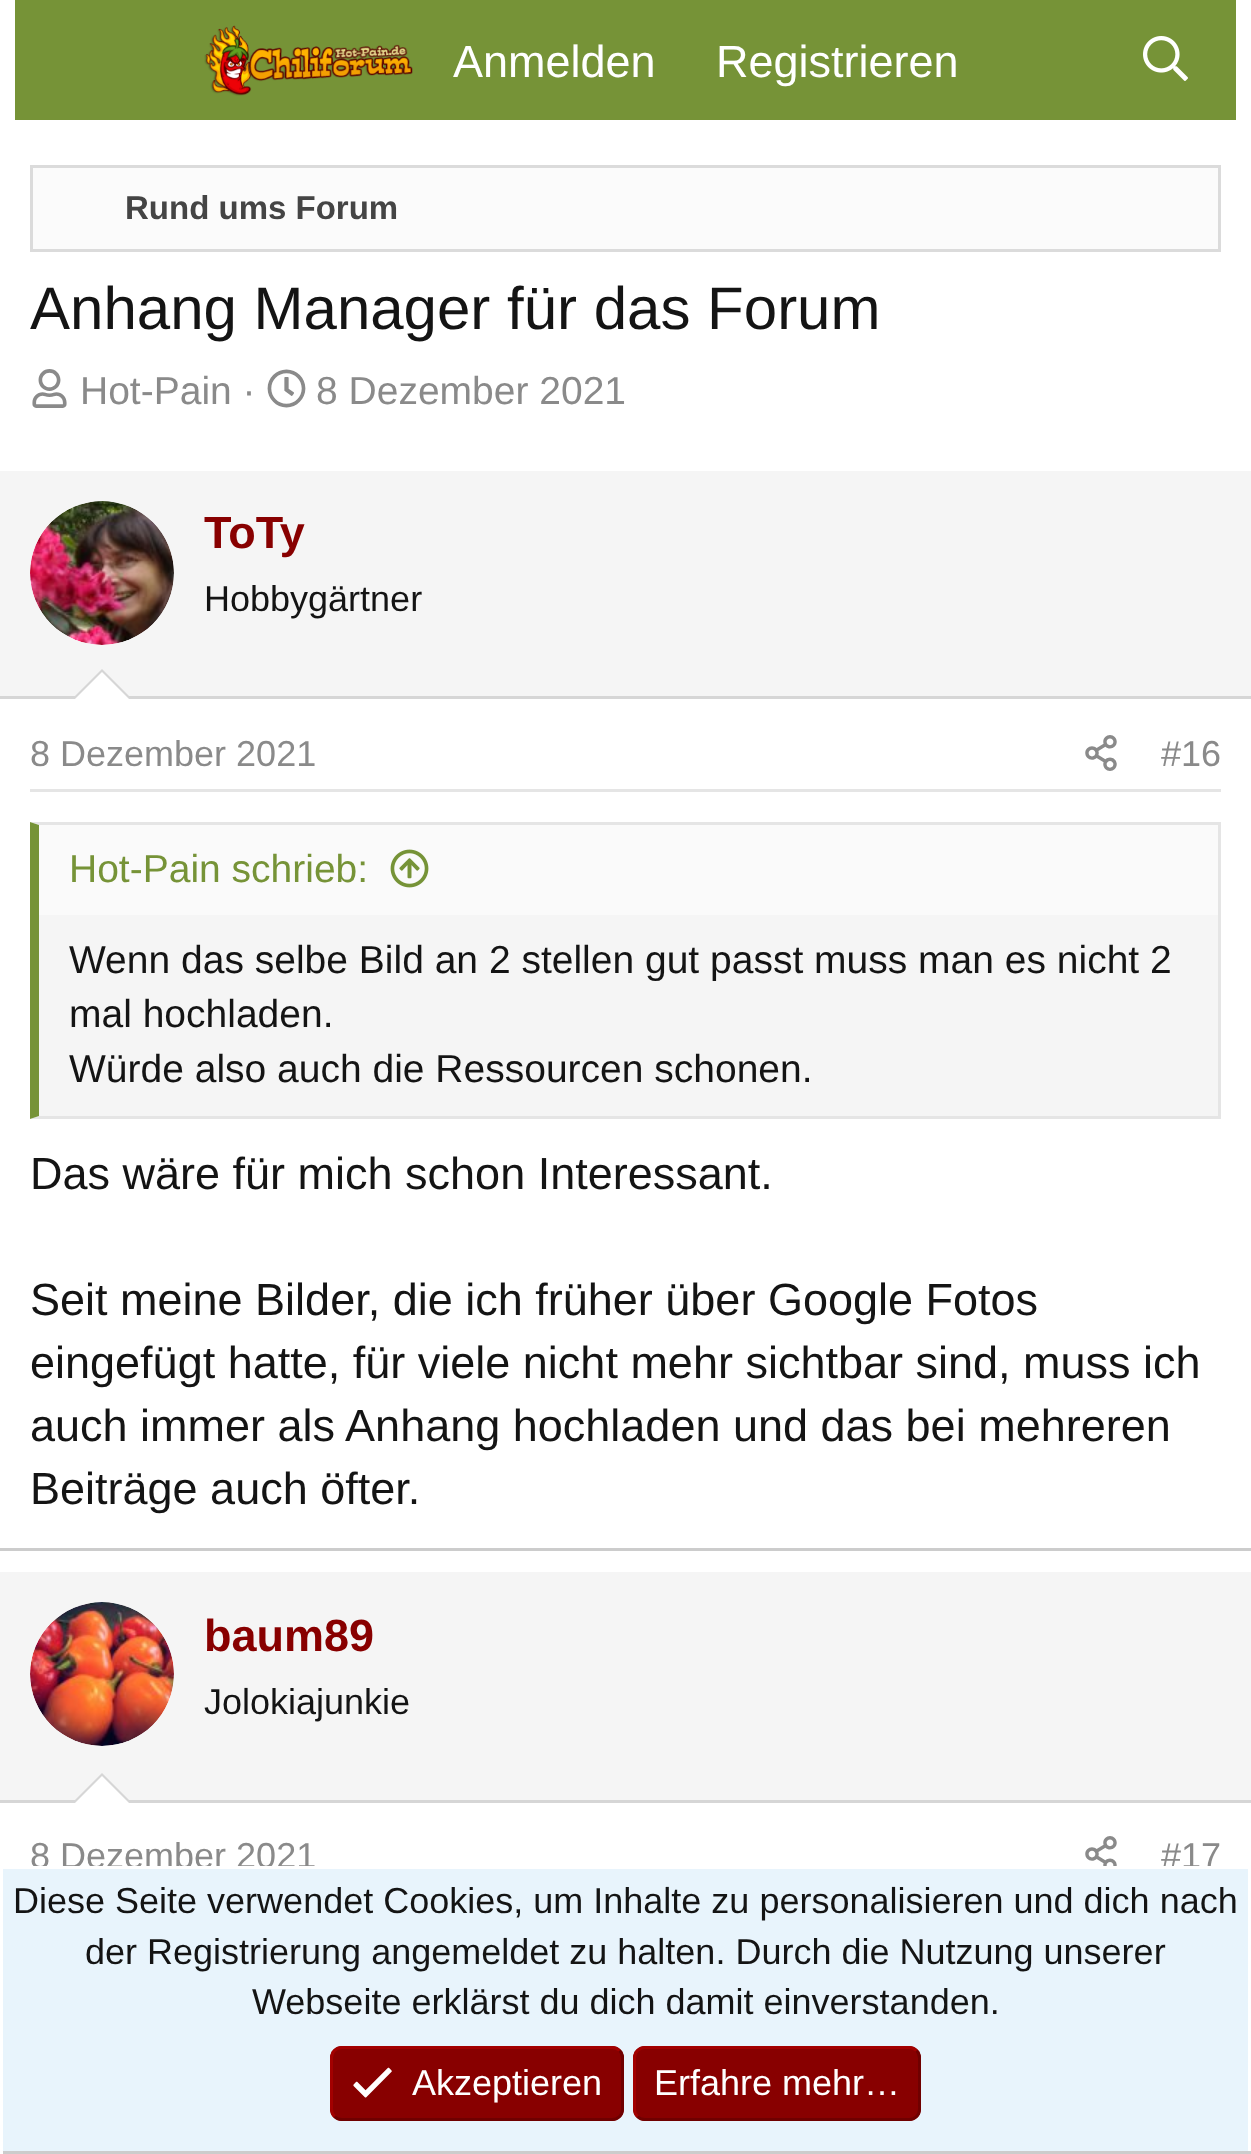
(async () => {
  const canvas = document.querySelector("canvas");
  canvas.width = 1251;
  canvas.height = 2154;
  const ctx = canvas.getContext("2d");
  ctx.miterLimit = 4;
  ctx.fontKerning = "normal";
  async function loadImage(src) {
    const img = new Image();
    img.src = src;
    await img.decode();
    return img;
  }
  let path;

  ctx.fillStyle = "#ffffff";
  ctx.fillRect(0, 0, 1251, 2154);
  ctx.fillStyle = "#769337";
  ctx.fillRect(15, 0, 1221, 120);
  ctx.drawImage(await loadImage("img/1.png"), 204, 25, 209, 71);
  ctx.drawImage(await loadImage("img/2.png"), 1143, 36, 45, 45);
  ctx.fillStyle = "#fbfbfb";
  ctx.beginPath();
  ctx.rect(31.5, 166.5, 1188, 84);
  ctx.fill();
  ctx.strokeStyle = "#dbdbdb";
  ctx.lineWidth = 3;
  ctx.stroke();
  ctx.drawImage(await loadImage("img/3.png"), 32, 369, 35, 39);
  ctx.drawImage(await loadImage("img/4.png"), 267, 369, 39, 39);
  for (const [x, y, w, h, color] of [
    [0, 1548, 1251, 3, "#cccccc"],
    [0, 471, 1251, 225, "#f5f5f5"],
    [0, 696, 1251, 3, "#d6d6d6"],
  ]) {
    ctx.fillStyle = color;
    ctx.fillRect(x, y, w, h);
  }
  ctx.fillStyle = "#ffffff";
  ctx.beginPath();
  ctx.arc(102, 573, 72, 0, Math.PI * 2);
  ctx.fill();
  ctx.drawImage(await loadImage("img/5.png"), 30, 501, 144, 144);
  ctx.fillStyle = "#d6d6d6";
  path = new Path2D("M132 699H72L102 669Z");
  ctx.fill(path);
  ctx.fillStyle = "#ffffff";
  path = new Path2D("M129 699H75L102 672Z");
  ctx.fill(path);
  ctx.fillStyle = "#e5e5e5";
  ctx.fillRect(30, 789, 1191, 3);
  ctx.drawImage(await loadImage("img/6.png"), 1085, 735, 32, 36);
  ctx.fillStyle = "#f5f5f5";
  ctx.fillRect(39, 915, 1179, 201);
  ctx.fillStyle = "#e5e5e5";
  path = new Path2D("M30 822H1221L1218 825H39Z");
  ctx.fill(path);
  ctx.fillRect(1218, 822, 3, 297);
  path = new Path2D("M1221 1119H30L39 1116H1218Z");
  ctx.fill(path);
  ctx.fillStyle = "#769337";
  path = new Path2D("M30 1119V822L39 825V1116Z");
  ctx.fill(path);
  ctx.fillStyle = "#fafafa";
  ctx.fillRect(39, 825, 1179, 90);
  ctx.drawImage(await loadImage("img/7.png"), 390, 849, 39, 39);
  ctx.fillStyle = "#f5f5f5";
  ctx.fillRect(0, 1572, 1251, 228);
  ctx.fillStyle = "#d6d6d6";
  ctx.fillRect(0, 1800, 1251, 3);
  ctx.fillStyle = "#ffffff";
  ctx.beginPath();
  ctx.arc(102, 1674, 72, 0, Math.PI * 2);
  ctx.fill();
  ctx.drawImage(await loadImage("img/8.png"), 30, 1602, 144, 144);
  ctx.fillStyle = "#d6d6d6";
  path = new Path2D("M132 1803H72L102 1773Z");
  ctx.fill(path);
  ctx.fillStyle = "#ffffff";
  path = new Path2D("M129 1803H75L102 1776Z");
  ctx.fill(path);
  ctx.drawImage(await loadImage("img/9.png"), 1085, 1836, 32, 30);
  for (const [x, y, w, h, color] of [
    [3, 1869, 1245, 282, "#e8f4fc"],
    [0, 2151, 1251, 3, "#cccccc"],
    [0, 2151, 3, 3, "#ffffff"],
  ]) {
    ctx.fillStyle = color;
    ctx.fillRect(x, y, w, h);
  }
  ctx.fillStyle = "#880000";
  ctx.beginPath();
  ctx.roundRect(330, 2046, 294, 75, 12);
  ctx.fill();
  path = new Path2D("M619.5 2050.5C621.5 2052.5 622.5 2055 622.5 2058V2109C622.5 2112 621.5 2114.5 619.5 2116.5C617.5 2118.5 615 2119.5 612 2119.5H342C339 2119.5 336.5 2118.5 334.5 2116.5");
  ctx.strokeStyle = "#6f0000";
  ctx.stroke(path);
  path = new Path2D("M334.5 2116.5C332.5 2114.5 331.5 2112 331.5 2109V2058C331.5 2055 332.5 2052.5 334.5 2050.5C336.5 2048.5 339 2047.5 342 2047.5H612C615 2047.5 617.5 2048.5 619.5 2050.5");
  ctx.strokeStyle = "#a20000";
  ctx.stroke(path);
  ctx.drawImage(await loadImage("img/10.png"), 353, 2067, 39, 31);
  ctx.beginPath();
  ctx.roundRect(633, 2046, 288, 75, 12);
  ctx.fill();
  path = new Path2D("M916.5 2050.5C918.5 2052.5 919.5 2055 919.5 2058V2109C919.5 2112 918.5 2114.5 916.5 2116.5C914.5 2118.5 912 2119.5 909 2119.5H645C642 2119.5 639.5 2118.5 637.5 2116.5");
  ctx.strokeStyle = "#6f0000";
  ctx.stroke(path);
  path = new Path2D("M637.5 2116.5C635.5 2114.5 634.5 2112 634.5 2109V2058C634.5 2055 635.5 2052.5 637.5 2050.5C639.5 2048.5 642 2047.5 645 2047.5H909C912 2047.5 914.5 2048.5 916.5 2050.5");
  ctx.strokeStyle = "#a20000";
  ctx.stroke(path);
  ctx.font = "45px Liberation Sans";
  ctx.fillStyle = "#ffffff";
  ctx.fillText("Anmelden", 453, 77);
  ctx.fillText("Registrieren", 716, 77);
  ctx.font = "bold 33px Liberation Sans";
  ctx.fillStyle = "#444444";
  ctx.fillText("Rund ums Forum", 125, 219);
  ctx.font = "60px Liberation Sans";
  ctx.fillStyle = "#141414";
  ctx.fillText("Anhang Manager für das Forum", 30, 329);
  ctx.font = "39px Liberation Sans";
  ctx.fillStyle = "#8a8a8a";
  ctx.fillText("Hot-Pain ·", 80, 404);
  ctx.fillText("8 Dezember 2021", 316, 404);
  ctx.font = "bold 45px Liberation Sans";
  ctx.fillStyle = "#880000";
  ctx.fillText("ToTy", 204, 548);
  ctx.font = "36px Liberation Sans";
  ctx.fillStyle = "#141414";
  ctx.fillText("Hobbygärtner", 204, 611);
  ctx.fillStyle = "#8a8a8a";
  ctx.fillText("8 Dezember 2021", 30, 766);
  ctx.fillText("#16", 1161, 766);
  ctx.font = "39px Liberation Sans";
  ctx.fillStyle = "#769337";
  ctx.fillText("Hot-Pain schrieb:", 69, 882);
  ctx.fillStyle = "#141414";
  for (const [text, x, y] of [
    ["Wenn das selbe Bild an 2 stellen gut passt muss man es nicht 2", 69, 973],
    ["mal hochladen.", 69, 1027],
    ["Würde also auch die Ressourcen schonen.", 69, 1082],
  ]) {
    ctx.fillText(text, x, y);
  }
  ctx.font = "45px Liberation Sans";
  for (const [text, x, y] of [
    ["Das wäre für mich schon Interessant.", 30, 1189],
    ["Seit meine Bilder, die ich früher über Google Fotos", 30, 1315],
    ["eingefügt hatte, für viele nicht mehr sichtbar sind, muss ich", 30, 1378],
    ["auch immer als Anhang hochladen und das bei mehreren", 30, 1441],
    ["Beiträge auch öfter.", 30, 1504],
  ]) {
    ctx.fillText(text, x, y);
  }
  ctx.font = "bold 45px Liberation Sans";
  ctx.fillStyle = "#880000";
  ctx.fillText("baum89", 204, 1651);
  ctx.font = "36px Liberation Sans";
  ctx.fillStyle = "#141414";
  ctx.fillText("Jolokiajunkie", 204, 1714);
  ctx.fillStyle = "#8a8a8a";
  ctx.fillText("8 Dezember 2021", 30, 1868);
  ctx.fillText("#17", 1161, 1868);
  ctx.fillStyle = "#ffffff";
  ctx.fillRect(33, 1866, 1178, 3);
  ctx.fillStyle = "#141414";
  for (const [text, x, y] of [
    ["Diese Seite verwendet Cookies, um Inhalte zu personalisieren und dich nach", 13, 1913],
    ["der Registrierung angemeldet zu halten. Durch die Nutzung unserer", 85, 1964],
    ["Webseite erklärst du dich damit einverstanden.", 252, 2014],
  ]) {
    ctx.fillText(text, x, y);
  }
  ctx.fillStyle = "#ffffff";
  ctx.fillText("Akzeptieren", 412, 2095);
  ctx.fillText("Erfahre mehr…", 654, 2095);
})();
